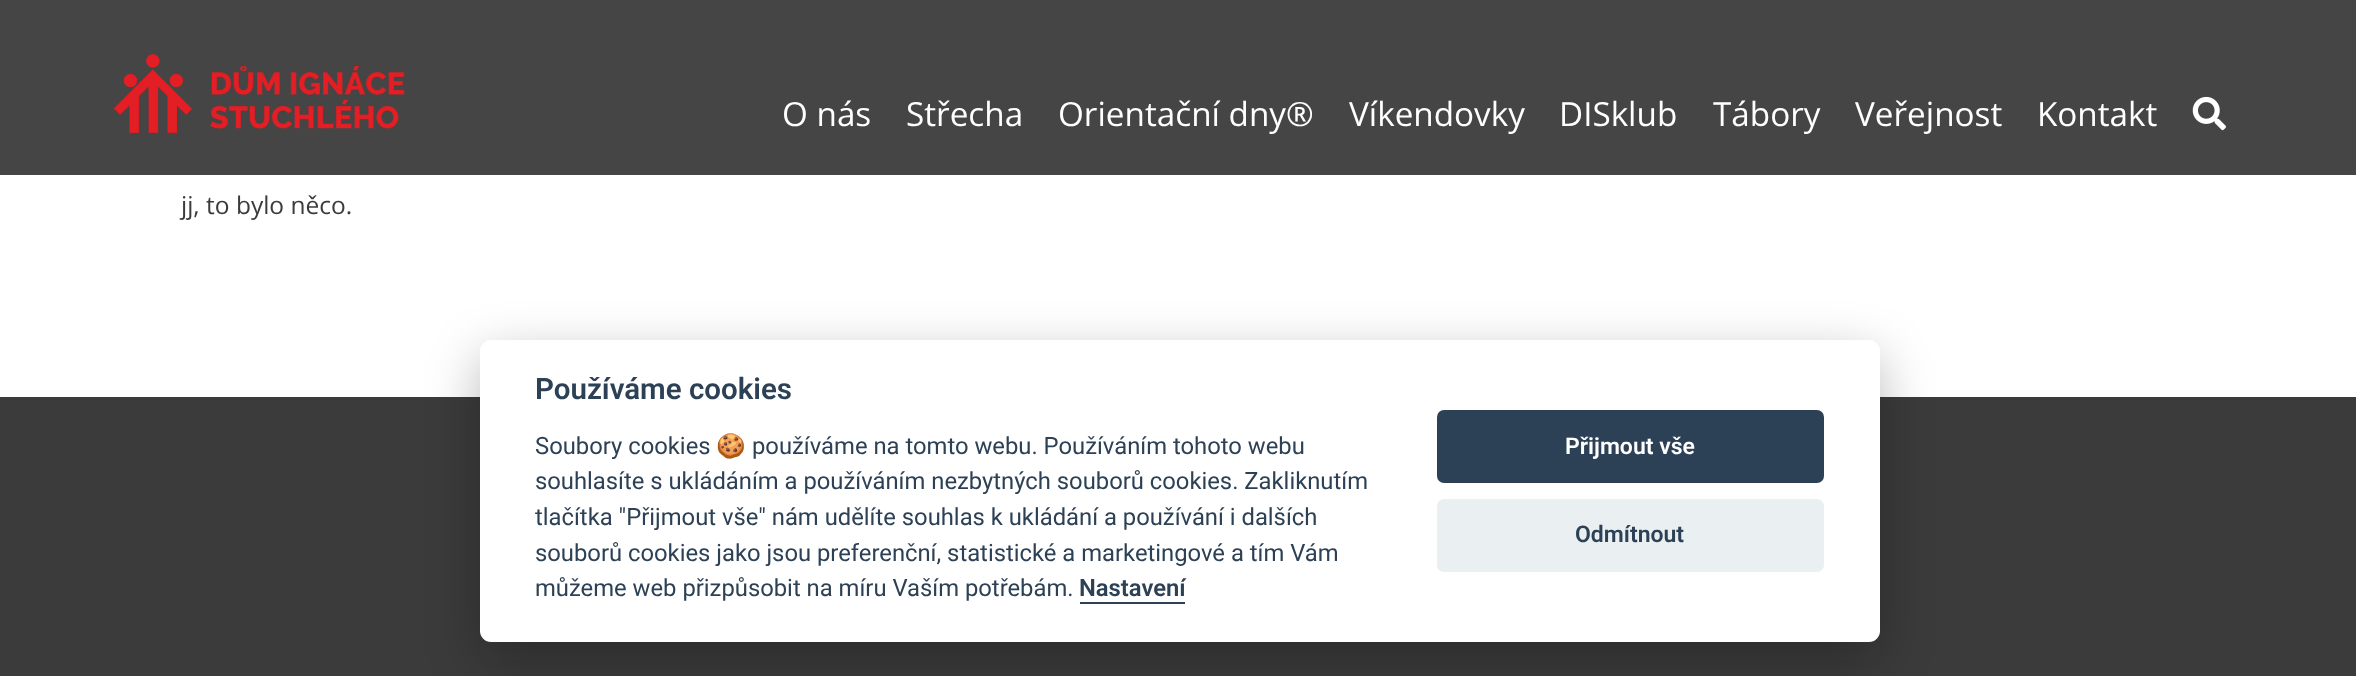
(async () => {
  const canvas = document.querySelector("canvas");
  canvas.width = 2356;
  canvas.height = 676;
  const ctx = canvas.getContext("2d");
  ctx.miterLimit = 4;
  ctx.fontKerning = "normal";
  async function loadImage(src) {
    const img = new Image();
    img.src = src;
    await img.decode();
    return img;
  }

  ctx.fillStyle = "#ffffff";
  ctx.fillRect(0, 0, 2356, 676);
  ctx.fillStyle = "#454545";
  ctx.fillRect(0, 0, 2356, 175);
  ctx.drawImage(await loadImage("img/1.png"), 114, 54, 291, 79);
  ctx.drawImage(await loadImage("img/2.png"), 2192, 96, 34, 35);
  ctx.fillStyle = "#3b3b3b";
  ctx.fillRect(0, 397, 2356, 279);
  ctx.fillStyle = "rgba(2, 2, 3, 0.28)";
  ctx.filter = "blur(26px)";
  ctx.beginPath();
  ctx.roundRect(480, 357, 1400, 303, 11);
  ctx.fill();
  ctx.filter = "none";
  ctx.fillStyle = "#ffffff";
  ctx.beginPath();
  ctx.roundRect(480, 340, 1400, 302, 11);
  ctx.fill();
  ctx.fillStyle = "#2d4156";
  ctx.fillRect(1080, 602, 105, 2);
  ctx.beginPath();
  ctx.roundRect(1437, 410, 387, 73, 7);
  ctx.fill();
  ctx.fillStyle = "#eaeff2";
  ctx.beginPath();
  ctx.roundRect(1437, 499, 387, 73, 7);
  ctx.fill();
  ctx.font = "33.25px Open Sans";
  ctx.fillStyle = "#ffffff";
  for (const [text, x, y] of [
    ["O nás", 782, 126],
    ["Střecha", 906, 126],
    ["Orientační dny®", 1058, 126],
    ["Víkendovky", 1349, 126],
    ["DISklub", 1559, 126],
    ["Tábory", 1713, 126],
    ["Veřejnost", 1855, 126],
    ["Kontakt", 2037, 126],
  ]) {
    ctx.fillText(text, x, y);
  }
  ctx.font = "24.5px Open Sans";
  ctx.fillStyle = "#3b3b3b";
  ctx.fillText("jj, to bylo něco.", 181, 214);
  ctx.font = "600 29.5px Roboto";
  ctx.fillStyle = "#2d4156";
  ctx.fillText("Používáme cookies", 535, 399);
  ctx.font = "23.8px Roboto";
  ctx.fillText("Soubory cookies", 535, 454);
  ctx.font = "23.8px Noto Color Emoji";
  ctx.fillText("🍪", 716, 454);
  ctx.font = "23.8px Roboto";
  for (const [text, x, y] of [
    ["používáme na tomto webu. Používáním tohoto webu", 752, 454],
    ["souhlasíte s ukládáním a používáním nezbytných souborů cookies. Zakliknutím", 535, 489],
    ["tlačítka \"Přijmout vše\" nám udělíte souhlas k ukládání a používání i dalších", 535, 525],
    ["souborů cookies jako jsou preferenční, statistické a marketingové a tím Vám", 535, 561],
    ["můžeme web přizpůsobit na míru Vaším potřebám.", 535, 596],
  ]) {
    ctx.fillText(text, x, y);
  }
  ctx.font = "600 23.8px Roboto";
  ctx.fillText("Nastavení", 1079, 596);
  ctx.font = "600 23px Roboto";
  ctx.fillStyle = "#ffffff";
  ctx.fillText("Přijmout vše", 1565, 454);
  ctx.fillStyle = "#2d4156";
  ctx.fillText("Odmítnout", 1575, 542);
})();
